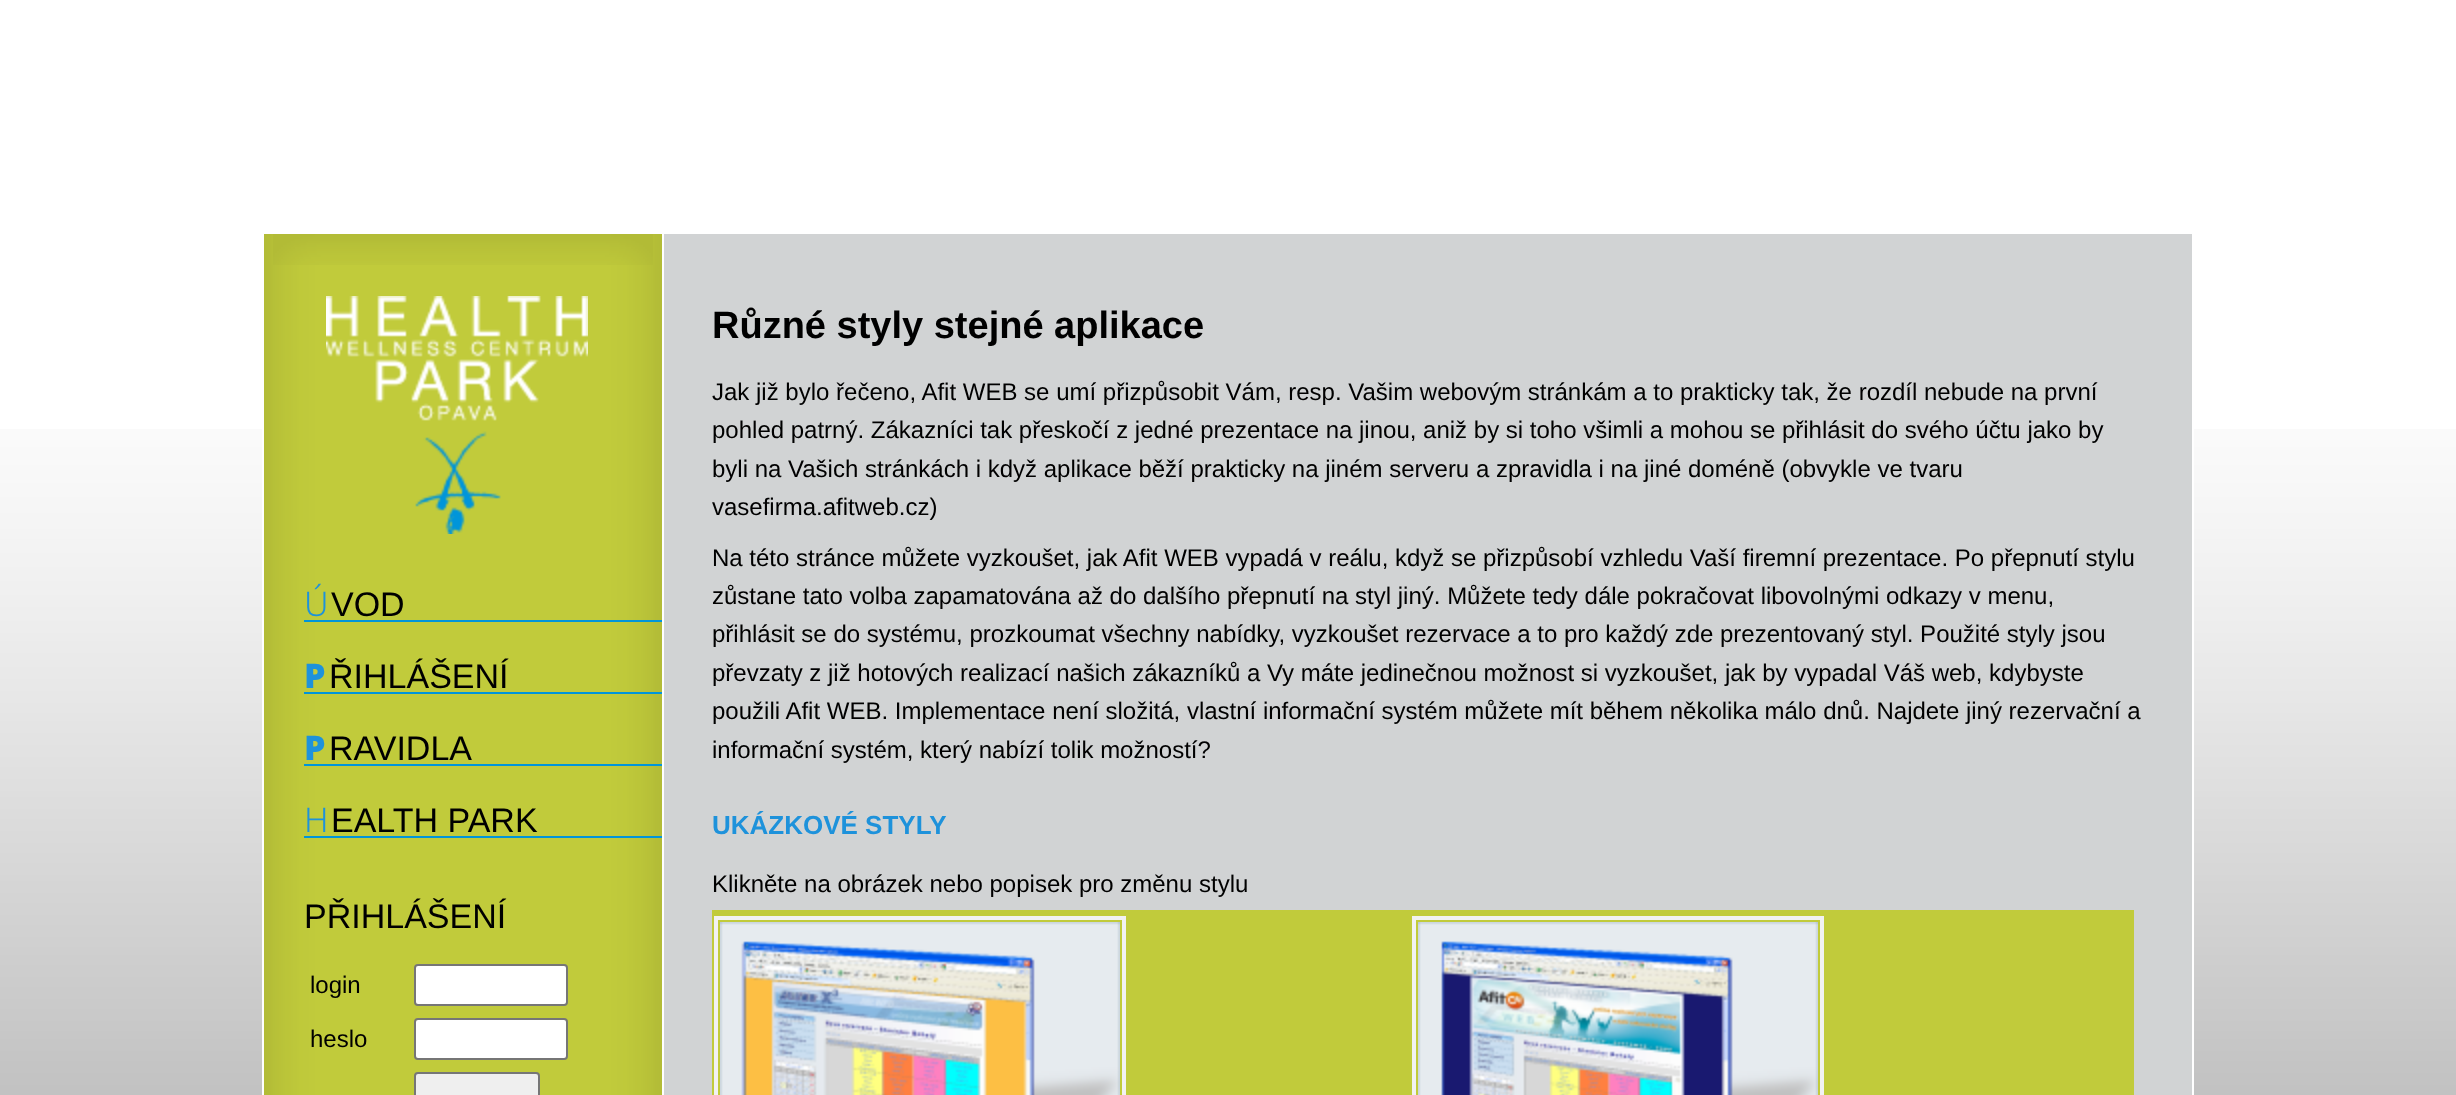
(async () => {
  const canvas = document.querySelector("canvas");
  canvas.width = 2456;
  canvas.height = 1095;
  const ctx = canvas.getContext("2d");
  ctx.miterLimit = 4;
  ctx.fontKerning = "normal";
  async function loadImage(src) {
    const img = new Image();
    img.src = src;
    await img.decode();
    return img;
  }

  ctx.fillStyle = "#ffffff";
  ctx.fillRect(0, 0, 2456, 1095);
  ctx.drawImage(await loadImage("img/1.png"), 0, 429, 2456, 666);
  ctx.strokeStyle = "#ffffff";
  ctx.lineWidth = 2;
  ctx.strokeRect(263, 233, 1930, 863);
  ctx.fillRect(662, 429, 2, 666);
  ctx.drawImage(await loadImage("img/2.png"), 264, 234, 398, 861);
  ctx.drawImage(await loadImage("img/3.png"), 273, 234, 380, 31);
  ctx.drawImage(await loadImage("img/4.png"), 326, 296, 262, 238);
  for (const [x, y, w, h, color] of [
    [304, 620, 358, 2, "#0095da"],
    [304, 692, 358, 2, "#0095da"],
    [304, 764, 358, 2, "#0095da"],
    [304, 836, 358, 2, "#0095da"],
  ]) {
    ctx.fillStyle = color;
    ctx.fillRect(x, y, w, h);
  }
  ctx.fillStyle = "#ffffff";
  ctx.beginPath();
  ctx.roundRect(415, 965, 152, 40, 3);
  ctx.fill();
  ctx.strokeStyle = "#767676";
  ctx.stroke();
  ctx.beginPath();
  ctx.roundRect(415, 1019, 152, 40, 3);
  ctx.fill();
  ctx.stroke();
  ctx.fillStyle = "#efefef";
  ctx.beginPath();
  ctx.roundRect(415, 1073, 124, 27, 3);
  ctx.fill();
  ctx.stroke();
  ctx.fillStyle = "#d1d3d4";
  ctx.fillRect(664, 234, 1528, 861);
  ctx.fillStyle = "#c1cb3b";
  ctx.fillRect(712, 910, 1422, 185);
  ctx.strokeStyle = "#f2f2f2";
  ctx.lineWidth = 4;
  ctx.strokeRect(716, 918, 408, 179);
  ctx.drawImage(await loadImage("img/5.png"), 720, 922, 400, 173);
  ctx.strokeRect(1414, 918, 408, 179);
  ctx.drawImage(await loadImage("img/6.png"), 1418, 922, 400, 173);
  ctx.letterSpacing = "2px";
  ctx.font = "300 34px Noto Sans";
  ctx.fillStyle = "#1e92db";
  ctx.fillText("Ú", 304, 616);
  ctx.letterSpacing = "0px";
  ctx.font = "34px Liberation Sans";
  ctx.fillStyle = "#000000";
  ctx.fillText("VOD", 331, 616);
  ctx.letterSpacing = "2px";
  ctx.font = "900 34px Noto Sans";
  ctx.fillStyle = "#1e92db";
  ctx.fillText("P", 304, 688);
  ctx.letterSpacing = "0px";
  ctx.font = "34px Liberation Sans";
  ctx.fillStyle = "#000000";
  ctx.fillText("ŘIHLÁŠENÍ", 329, 688);
  ctx.letterSpacing = "2px";
  ctx.font = "900 34px Noto Sans";
  ctx.fillStyle = "#1e92db";
  ctx.fillText("P", 304, 760);
  ctx.letterSpacing = "0px";
  ctx.font = "34px Liberation Sans";
  ctx.fillStyle = "#000000";
  ctx.fillText("RAVIDLA", 329, 760);
  ctx.letterSpacing = "2px";
  ctx.font = "300 34px Noto Sans";
  ctx.fillStyle = "#1e92db";
  ctx.fillText("H", 304, 832);
  ctx.letterSpacing = "0px";
  ctx.font = "34px Liberation Sans";
  ctx.fillStyle = "#000000";
  ctx.fillText("EALTH PARK", 331, 832);
  ctx.fillText("PŘIHLÁŠENÍ", 304, 928);
  ctx.font = "24px Liberation Sans";
  ctx.fillText("login", 310, 993);
  ctx.fillText("heslo", 310, 1047);
  ctx.font = "bold 38px Liberation Sans";
  ctx.fillText("Různé styly stejné aplikace", 712, 338);
  ctx.font = "24px Liberation Sans";
  for (const [text, x, y] of [
    ["Jak již bylo řečeno, Afit WEB se umí přizpůsobit Vám, resp. Vašim webovým stránkám a to prakticky tak, že rozdíl nebude na první", 712, 400],
    ["pohled patrný. Zákazníci tak přeskočí z jedné prezentace na jinou, aniž by si toho všimli a mohou se přihlásit do svého účtu jako by", 712, 438],
    ["byli na Vašich stránkách i když aplikace běží prakticky na jiném serveru a zpravidla i na jiné doméně (obvykle ve tvaru", 712, 477],
    ["vasefirma.afitweb.cz)", 712, 515],
    ["Na této stránce můžete vyzkoušet, jak Afit WEB vypadá v reálu, když se přizpůsobí vzhledu Vaší firemní prezentace. Po přepnutí stylu", 712, 566],
    ["zůstane tato volba zapamatována až do dalšího přepnutí na styl jiný. Můžete tedy dále pokračovat libovolnými odkazy v menu,", 712, 604],
    ["přihlásit se do systému, prozkoumat všechny nabídky, vyzkoušet rezervace a to pro každý zde prezentovaný styl. Použité styly jsou", 712, 642],
    ["převzaty z již hotových realizací našich zákazníků a Vy máte jedinečnou možnost si vyzkoušet, jak by vypadal Váš web, kdybyste", 712, 681],
    ["použili Afit WEB. Implementace není složitá, vlastní informační systém můžete mít během několika málo dnů. Najdete jiný rezervační a", 712, 719],
    ["informační systém, který nabízí tolik možností?", 712, 758],
  ]) {
    ctx.fillText(text, x, y);
  }
  ctx.font = "bold 26px Liberation Sans";
  ctx.fillStyle = "#1e92db";
  ctx.fillText("UKÁZKOVÉ STYLY", 712, 834);
  ctx.font = "24px Liberation Sans";
  ctx.fillStyle = "#000000";
  ctx.fillText("Klikněte na obrázek nebo popisek pro změnu stylu", 712, 892);
})();
